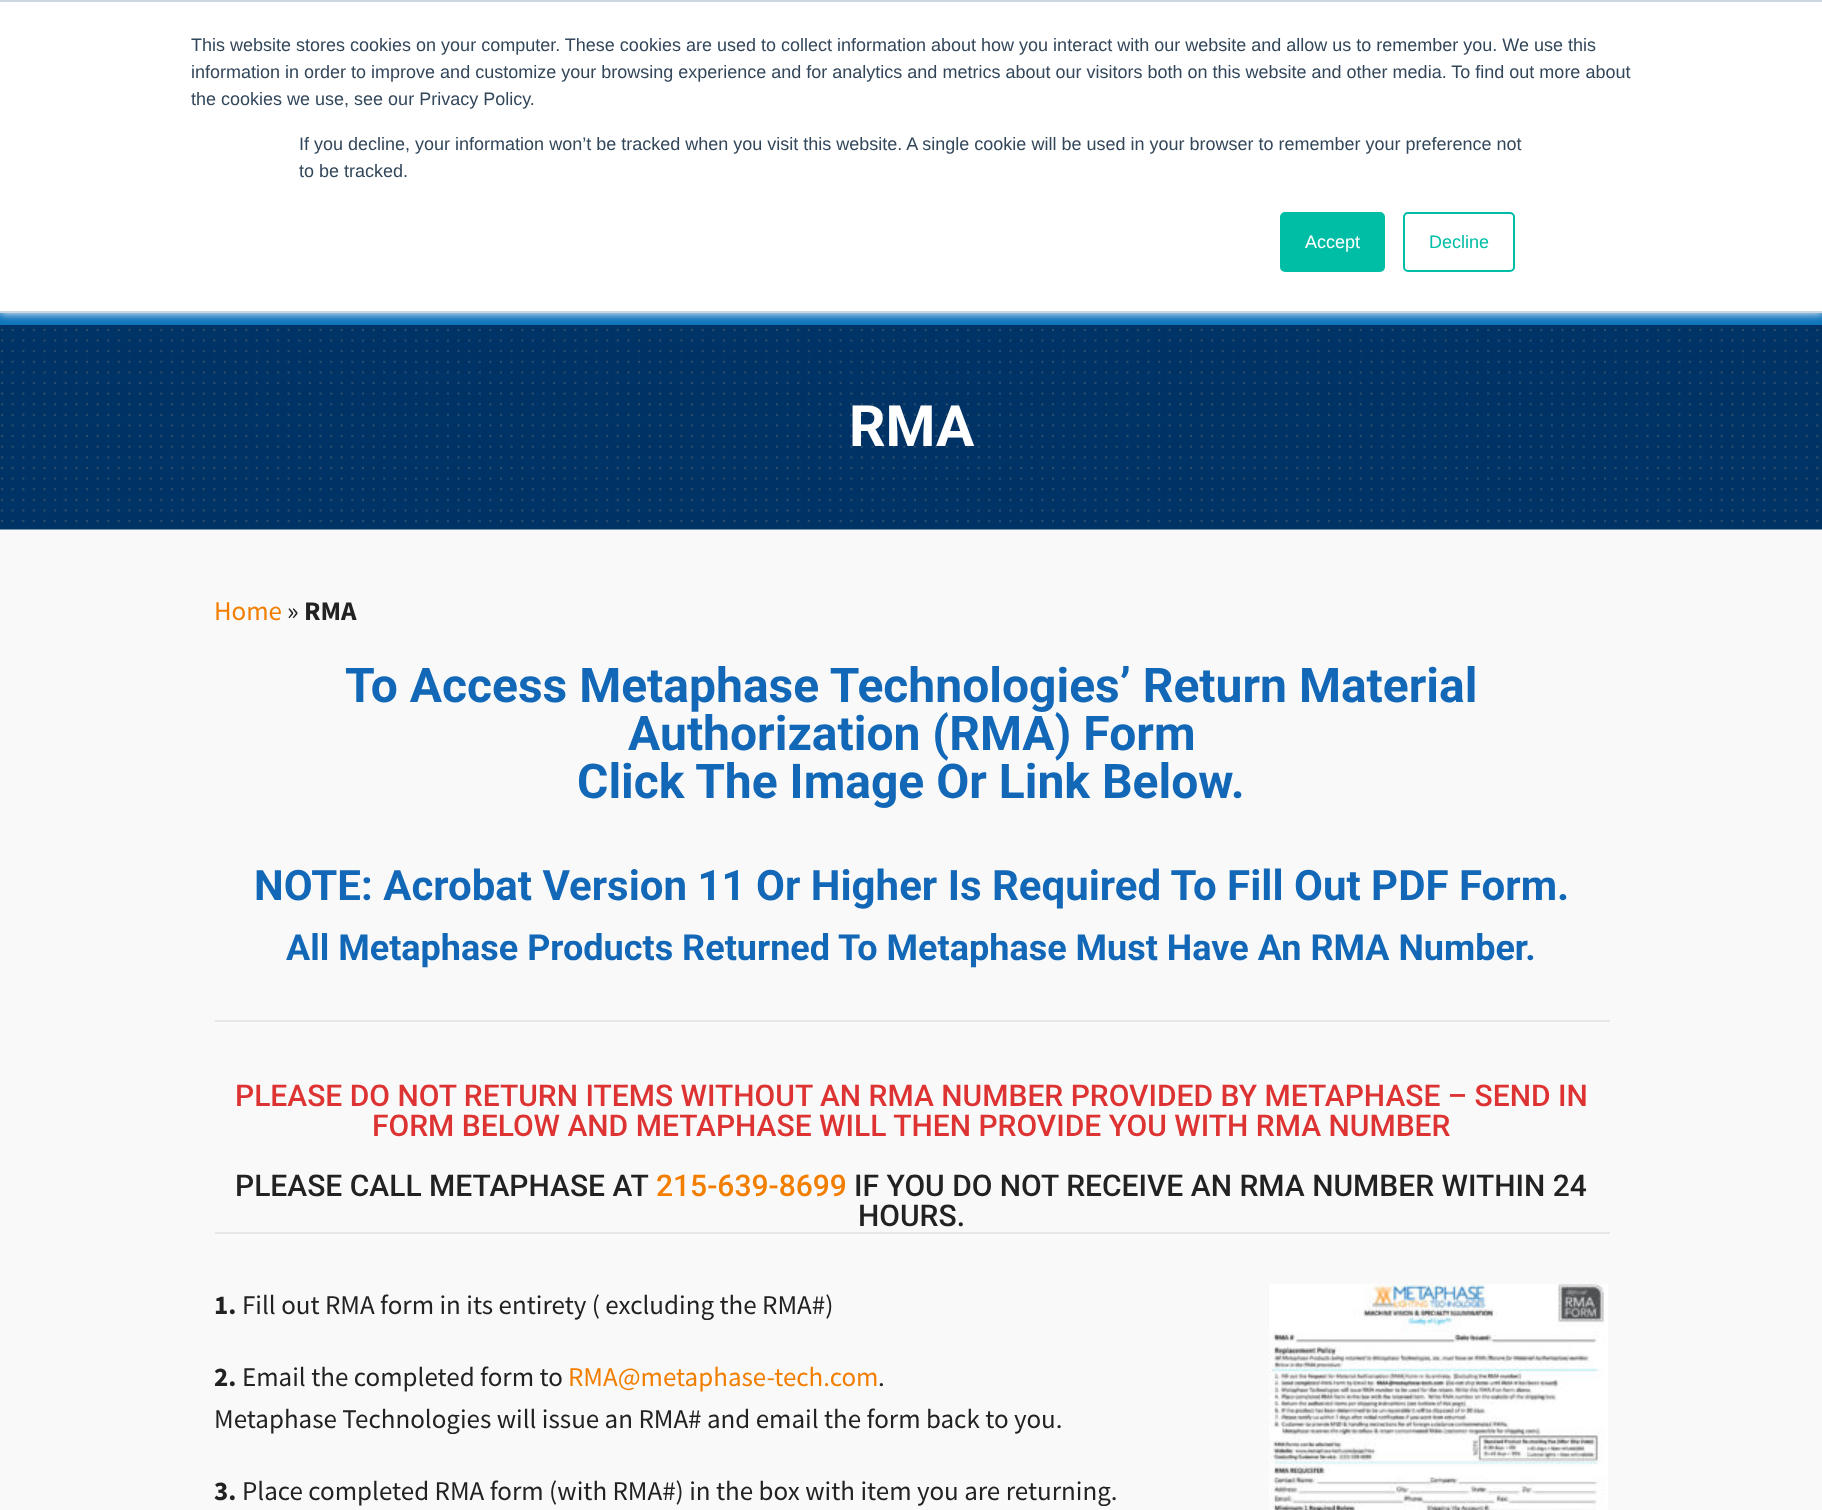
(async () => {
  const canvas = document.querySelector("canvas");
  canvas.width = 1822;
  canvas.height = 1510;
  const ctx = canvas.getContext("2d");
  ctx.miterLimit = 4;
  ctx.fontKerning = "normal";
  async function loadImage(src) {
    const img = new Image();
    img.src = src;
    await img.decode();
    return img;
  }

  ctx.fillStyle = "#f9f9f9";
  ctx.fillRect(0, 0, 1822, 1510);
  ctx.fillStyle = "#0f75bc";
  ctx.fillRect(0, 313, 1822, 12);
  ctx.drawImage(await loadImage("img/1.png"), 0, 325, 1822, 205);
  ctx.fillStyle = "#eaf0f6";
  ctx.filter = "blur(4px)";
  ctx.beginPath();
  ctx.rect(0, 2, 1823, 312);
  ctx.fill();
  ctx.filter = "none";
  for (const [x, y, w, h, color] of [
    [0, 2, 1822, 309, "#ffffff"],
    [0, 0, 1822, 2, "#cbd6e2"],
    [0, 311, 1822, 2, "#cbd6e2"],
  ]) {
    ctx.fillStyle = color;
    ctx.fillRect(x, y, w, h);
  }
  ctx.fillStyle = "#00bda5";
  ctx.beginPath();
  ctx.roundRect(1281, 213, 103, 58, 4);
  ctx.fill();
  ctx.strokeStyle = "#00bda5";
  ctx.lineWidth = 2;
  ctx.stroke();
  ctx.beginPath();
  ctx.roundRect(1404, 213, 110, 58, 4);
  ctx.stroke();
  ctx.fillStyle = "#e7e7e7";
  ctx.fillRect(215, 1020, 1395, 2);
  ctx.fillRect(215, 1232, 1395, 2);
  ctx.drawImage(await loadImage("img/2.png"), 1269, 1284, 339, 226);
  ctx.font = "18px Liberation Sans";
  ctx.fillStyle = "#33475b";
  for (const [text, x, y] of [
    ["This website stores cookies on your computer. These cookies are used to collect information about how you interact with our website and allow us to remember you. We use this", 191, 51],
    ["information in order to improve and customize your browsing experience and for analytics and metrics about our visitors both on this website and other media. To find out more about", 191, 78],
    ["the cookies we use, see our Privacy Policy.", 191, 105],
    ["If you decline, your information won’t be tracked when you visit this website. A single cookie will be used in your browser to remember your preference not", 299, 150],
    ["to be tracked.", 299, 177],
  ]) {
    ctx.fillText(text, x, y);
  }
  ctx.fillStyle = "#ffffff";
  ctx.fillText("Accept", 1305, 248);
  ctx.fillStyle = "#00bda5";
  ctx.fillText("Decline", 1429, 248);
  ctx.font = "bold 57px Roboto";
  ctx.fillStyle = "#ffffff";
  ctx.fillText("RMA", 849, 446);
  ctx.font = "27px Source Sans Pro";
  ctx.fillStyle = "#f27e00";
  ctx.fillText("Home", 214, 620);
  ctx.fillStyle = "#222222";
  ctx.fillText("»", 287, 620);
  ctx.font = "bold 27px Source Sans Pro";
  ctx.fillText("RMA", 304, 620);
  ctx.font = "bold 48px Roboto";
  ctx.fillStyle = "#1267b7";
  for (const [text, x, y] of [
    ["To Access Metaphase Technologies’ Return Material", 345, 702],
    ["Authorization (RMA) Form", 628, 750],
    ["Click The Image Or Link Below.", 577, 798],
  ]) {
    ctx.fillText(text, x, y);
  }
  ctx.font = "bold 42px Roboto";
  ctx.fillText("NOTE: Acrobat Version 11 Or Higher Is Required To Fill Out PDF Form.", 254, 900);
  ctx.font = "bold 36px Roboto";
  ctx.fillText("All Metaphase Products Returned To Metaphase Must Have An RMA Number.", 286, 960);
  ctx.font = "500 30px Roboto";
  ctx.fillStyle = "#dd3333";
  ctx.fillText("PLEASE DO NOT RETURN ITEMS WITHOUT AN RMA NUMBER PROVIDED BY METAPHASE – SEND IN", 235, 1106);
  ctx.fillText("FORM BELOW AND METAPHASE WILL THEN PROVIDE YOU WITH RMA NUMBER", 372, 1136);
  ctx.fillStyle = "#222222";
  ctx.fillText("PLEASE CALL METAPHASE AT", 235, 1196);
  ctx.fillStyle = "#f27e00";
  ctx.fillText("215-639-8699", 656, 1196);
  ctx.fillStyle = "#222222";
  ctx.fillText("IF YOU DO NOT RECEIVE AN RMA NUMBER WITHIN 24", 854, 1196);
  ctx.fillText("HOURS.", 858, 1226);
  ctx.font = "bold 27px Source Sans Pro";
  ctx.fillText("1.", 214, 1314);
  ctx.font = "27px Source Sans Pro";
  ctx.fillText("Fill out RMA form in its entirety ( excluding the RMA#)", 242, 1314);
  ctx.font = "bold 27px Source Sans Pro";
  ctx.fillText("2.", 214, 1386);
  ctx.font = "27px Source Sans Pro";
  ctx.fillText("Email the completed form to", 242, 1386);
  ctx.fillStyle = "#f27e00";
  ctx.fillText("RMA@metaphase-tech.com", 568, 1386);
  ctx.fillStyle = "#222222";
  ctx.fillText(".", 878, 1386);
  ctx.fillText("Metaphase Technologies will issue an RMA# and email the form back to you.", 214, 1428);
  ctx.font = "bold 27px Source Sans Pro";
  ctx.fillText("3.", 214, 1500);
  ctx.font = "27px Source Sans Pro";
  ctx.fillText("Place completed RMA form (with RMA#) in the box with item you are returning.", 242, 1500);
})();
